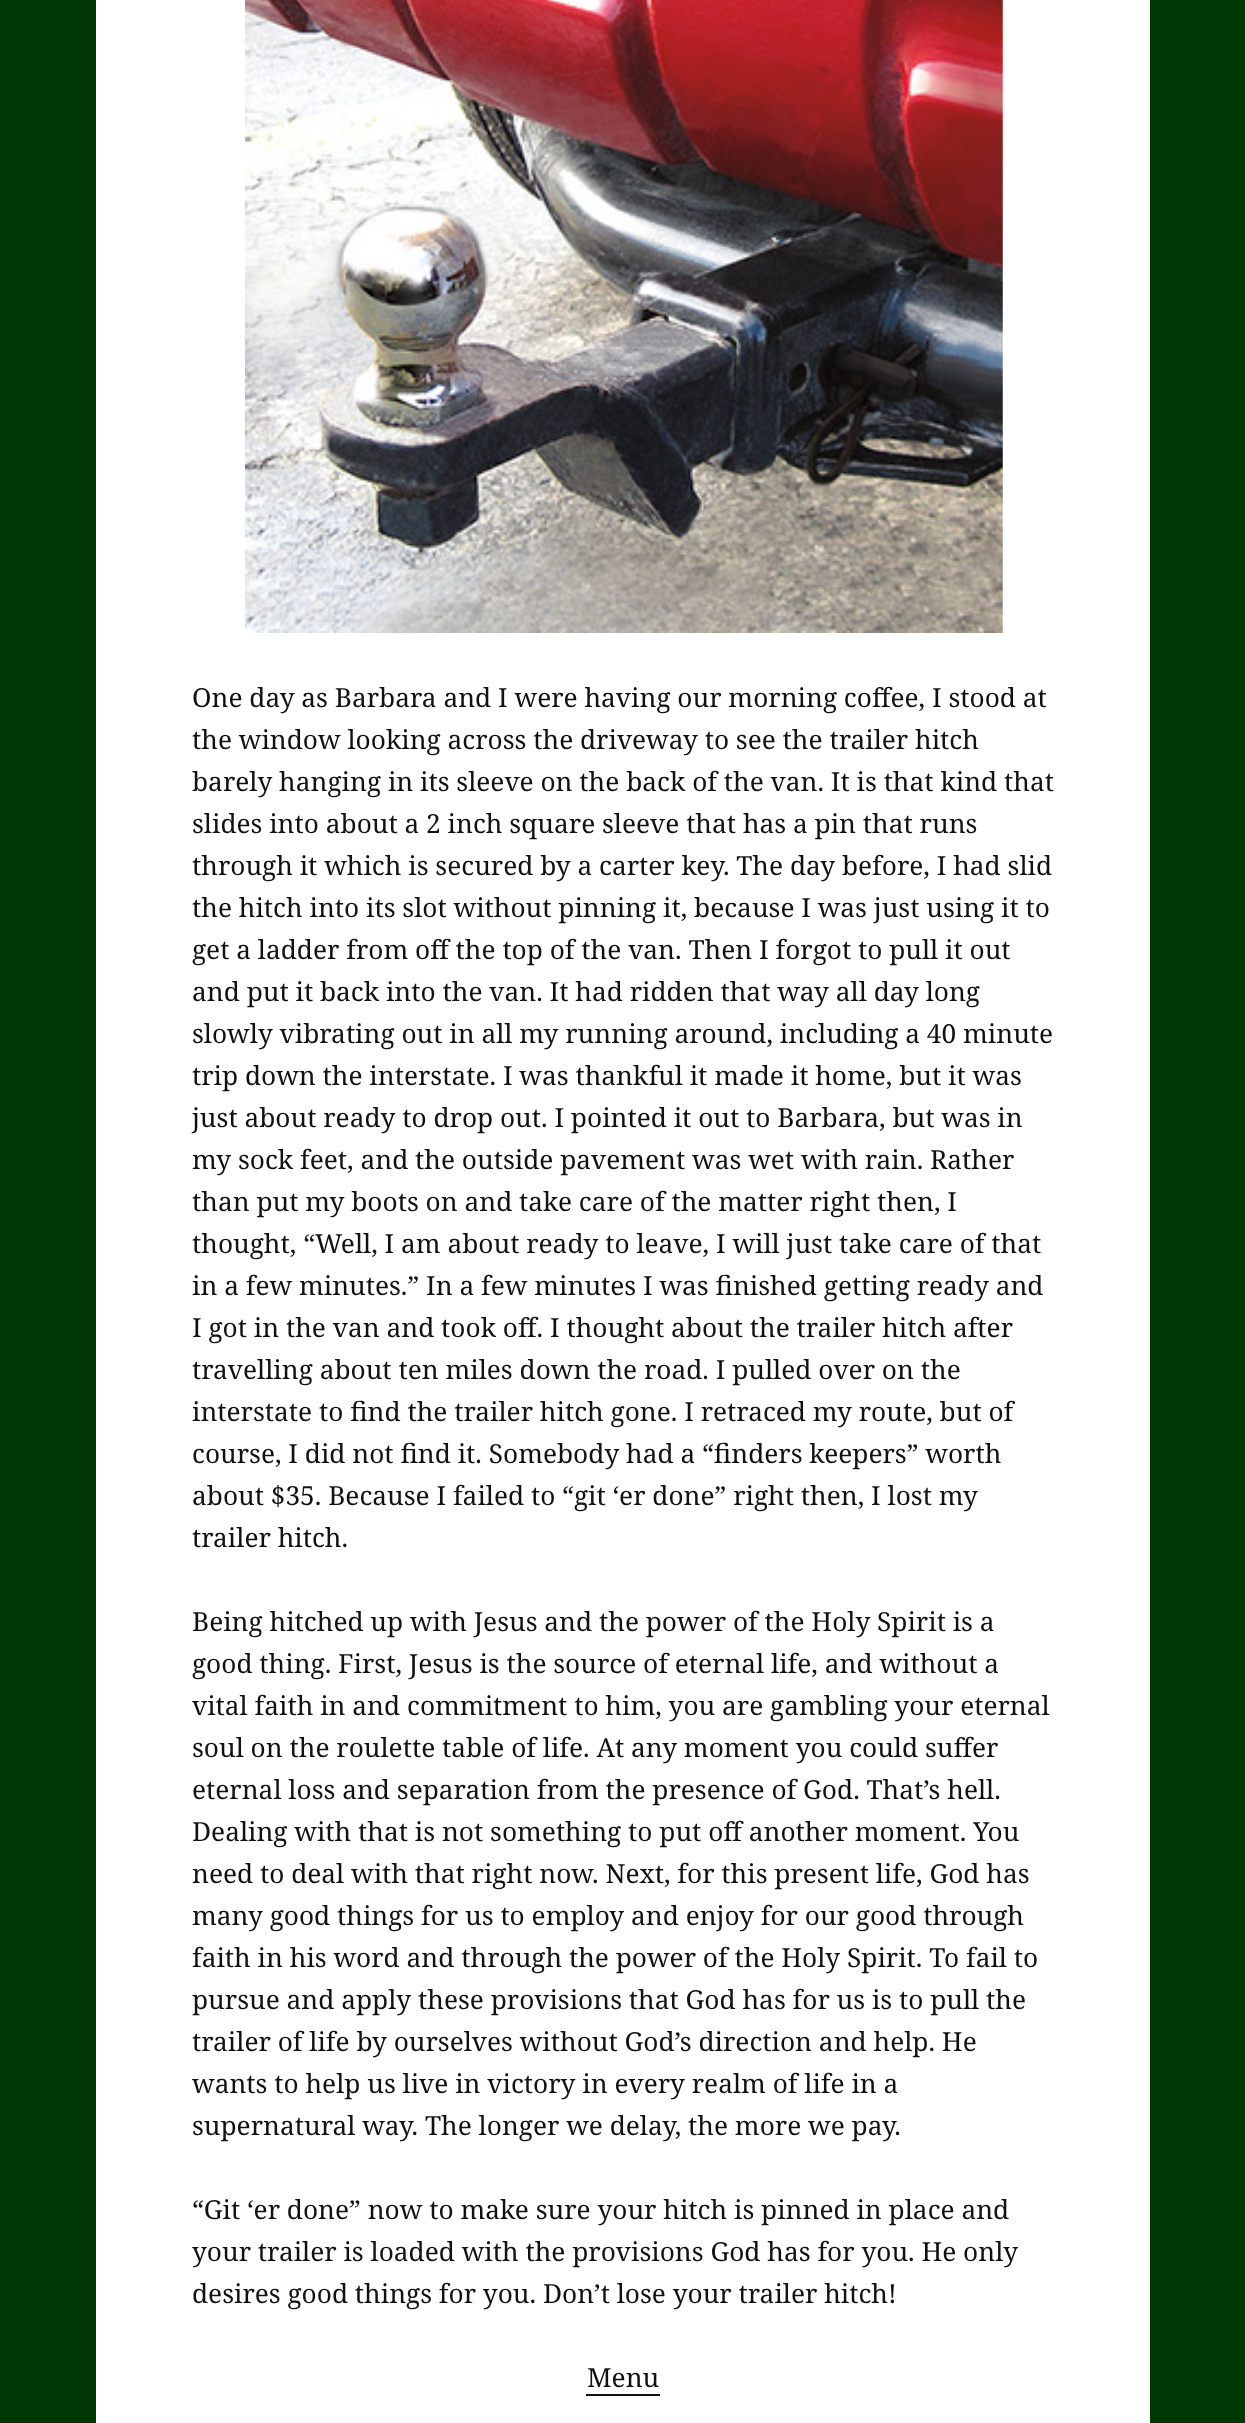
(async () => {
  const canvas = document.querySelector("canvas");
  canvas.width = 1245;
  canvas.height = 2423;
  const ctx = canvas.getContext("2d");
  ctx.miterLimit = 4;
  ctx.fontKerning = "normal";
  async function loadImage(src) {
    const img = new Image();
    img.src = src;
    await img.decode();
    return img;
  }

  ctx.fillStyle = "#003805";
  ctx.fillRect(0, 0, 1245, 2423);
  ctx.fillStyle = "#ffffff";
  ctx.fillRect(96, 0, 1054, 2423);
  ctx.drawImage(await loadImage("img/1.png"), 245, 0, 758, 633);
  ctx.fillStyle = "#111111";
  ctx.fillRect(586, 2394, 74, 2);
  ctx.font = "26.25px Noto Serif";
  for (const [text, x, y] of [
    ["One day as Barbara and I were having our morning coffee, I stood at", 192, 707],
    ["the window looking across the driveway to see the trailer hitch", 192, 749],
    ["barely hanging in its sleeve on the back of the van. It is that kind that", 192, 791],
    ["slides into about a 2 inch square sleeve that has a pin that runs", 192, 833],
    ["through it which is secured by a carter key. The day before, I had slid", 192, 875],
    ["the hitch into its slot without pinning it, because I was just using it to", 192, 917],
    ["get a ladder from off the top of the van. Then I forgot to pull it out", 192, 959],
    ["and put it back into the van. It had ridden that way all day long", 192, 1001],
    ["slowly vibrating out in all my running around, including a 40 minute", 192, 1043],
    ["trip down the interstate. I was thankful it made it home, but it was", 192, 1085],
    ["just about ready to drop out. I pointed it out to Barbara, but was in", 192, 1127],
    ["my sock feet, and the outside pavement was wet with rain. Rather", 192, 1169],
    ["than put my boots on and take care of the matter right then, I", 192, 1211],
    ["thought, “Well, I am about ready to leave, I will just take care of that", 192, 1253],
    ["in a few minutes.” In a few minutes I was finished getting ready and", 192, 1295],
    ["I got in the van and took off. I thought about the trailer hitch after", 192, 1337],
    ["travelling about ten miles down the road. I pulled over on the", 192, 1379],
    ["interstate to find the trailer hitch gone. I retraced my route, but of", 192, 1421],
    ["course, I did not find it. Somebody had a “finders keepers” worth", 192, 1463],
    ["about $35. Because I failed to “git ‘er done” right then, I lost my", 192, 1505],
    ["trailer hitch.", 192, 1547],
    ["Being hitched up with Jesus and the power of the Holy Spirit is a", 192, 1631],
    ["good thing. First, Jesus is the source of eternal life, and without a", 192, 1673],
    ["vital faith in and commitment to him, you are gambling your eternal", 192, 1715],
    ["soul on the roulette table of life. At any moment you could suffer", 192, 1757],
    ["eternal loss and separation from the presence of God. That’s hell.", 192, 1799],
    ["Dealing with that is not something to put off another moment. You", 192, 1841],
    ["need to deal with that right now. Next, for this present life, God has", 192, 1883],
    ["many good things for us to employ and enjoy for our good through", 192, 1925],
    ["faith in his word and through the power of the Holy Spirit. To fail to", 192, 1967],
    ["pursue and apply these provisions that God has for us is to pull the", 192, 2009],
    ["trailer of life by ourselves without God’s direction and help. He", 192, 2051],
    ["wants to help us live in victory in every realm of life in a", 192, 2093],
    ["supernatural way. The longer we delay, the more we pay.", 192, 2135],
    ["“Git ‘er done” now to make sure your hitch is pinned in place and", 192, 2219],
    ["your trailer is loaded with the provisions God has for you. He only", 192, 2261],
    ["desires good things for you. Don’t lose your trailer hitch!", 192, 2303],
    ["Menu", 587, 2387],
  ]) {
    ctx.fillText(text, x, y);
  }
})();
